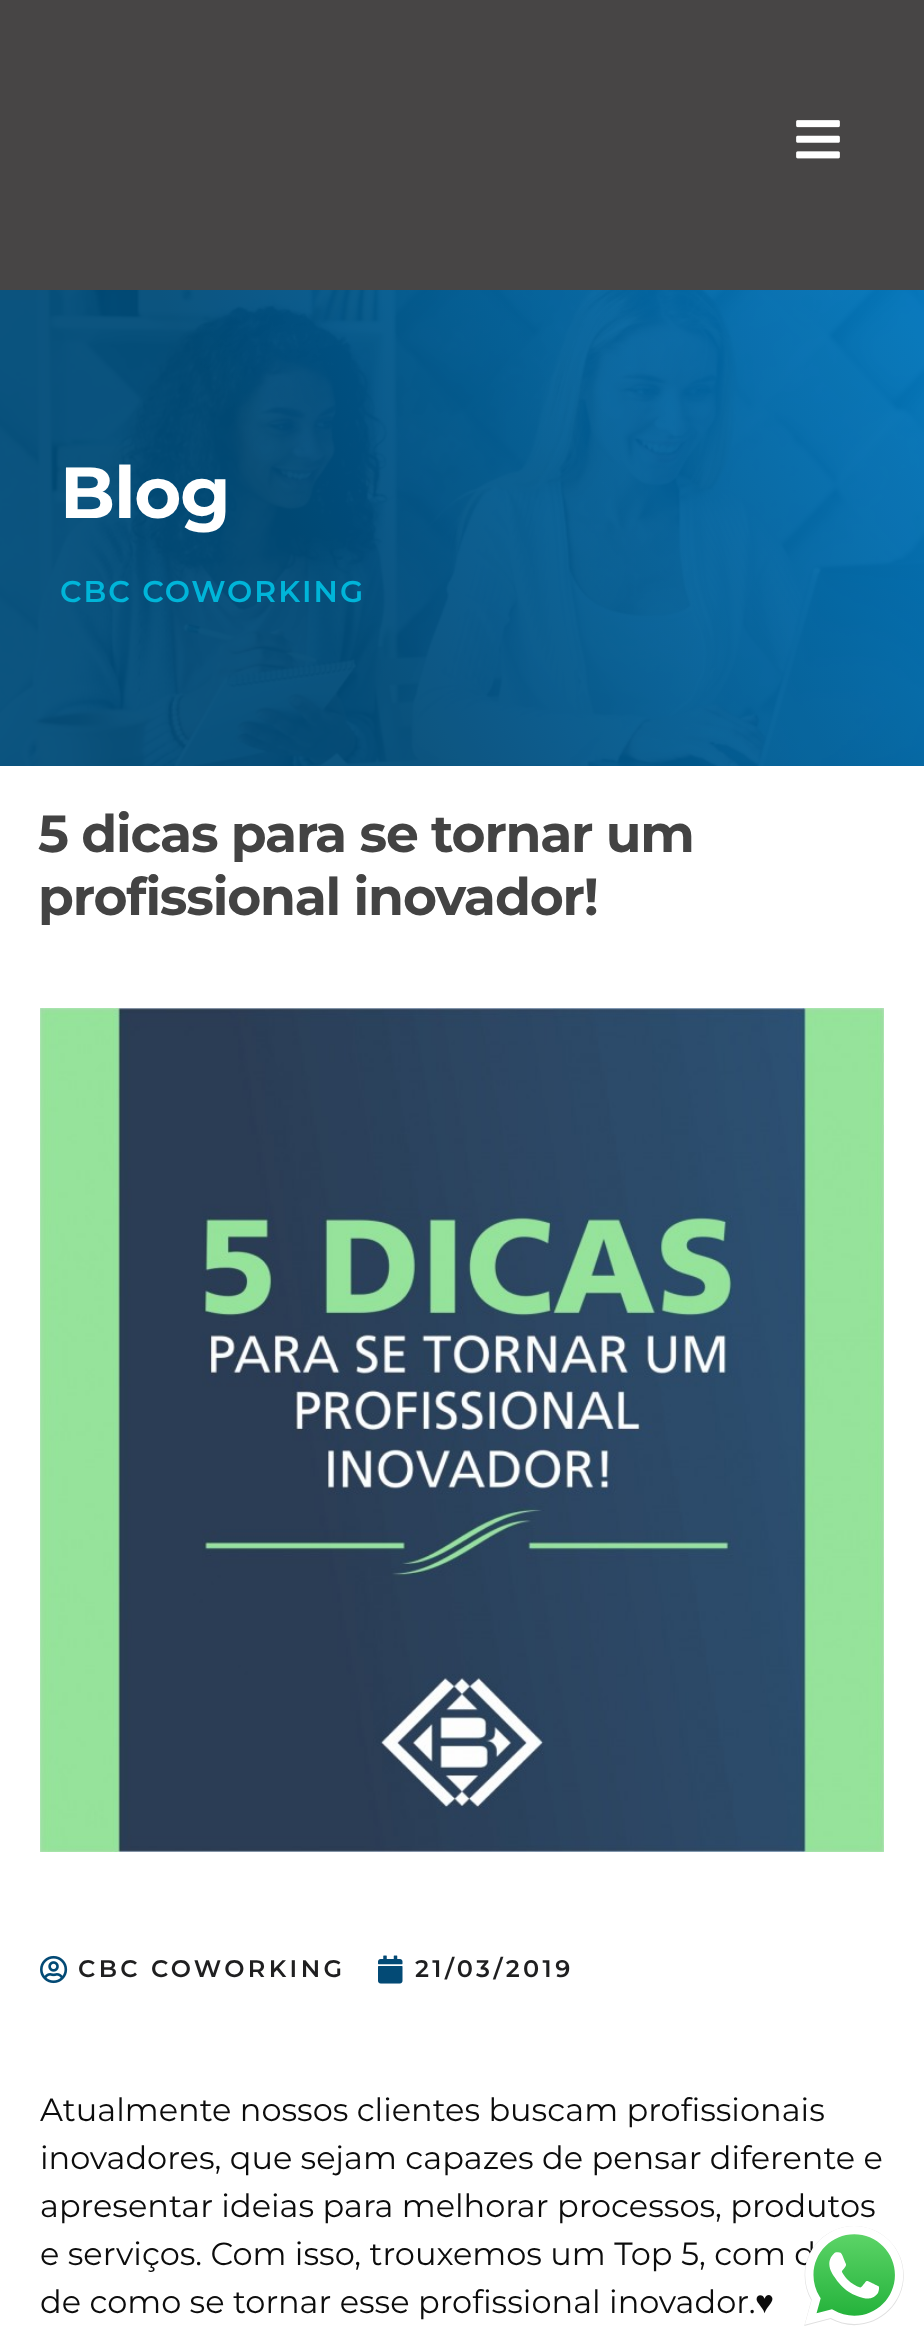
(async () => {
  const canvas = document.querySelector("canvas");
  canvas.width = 924;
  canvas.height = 2346;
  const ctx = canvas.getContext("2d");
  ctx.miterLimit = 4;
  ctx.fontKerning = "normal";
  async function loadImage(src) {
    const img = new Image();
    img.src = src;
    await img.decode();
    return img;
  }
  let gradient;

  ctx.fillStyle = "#ffffff";
  ctx.fillRect(0, 0, 924, 2346);
  ctx.fillStyle = "#474545";
  ctx.fillRect(0, 0, 924, 290);
  ctx.drawImage(await loadImage("img/1.png"), 796, 120, 44, 39);
  gradient = ctx.createLinearGradient(912, 268, 12, 788);
  gradient.addColorStop(0, "#0378bf");
  gradient.addColorStop(0.64, "#004c7a");
  ctx.fillStyle = gradient;
  ctx.fillRect(0, 290, 924, 476);
  ctx.drawImage(await loadImage("img/2.png"), 0, 290, 924, 476);
  ctx.drawImage(await loadImage("img/3.png"), 40, 1008, 844, 844);
  ctx.drawImage(await loadImage("img/4.png"), 40, 1955, 28, 29);
  ctx.drawImage(await loadImage("img/5.png"), 378, 1955, 25, 29);
  ctx.letterSpacing = "-1.2px";
  ctx.font = "bold 72px Montserrat";
  ctx.fillStyle = "#ffffff";
  ctx.fillText("Blog", 60, 518);
  ctx.letterSpacing = "2px";
  ctx.font = "600 30px Montserrat";
  ctx.fillStyle = "#00b5d9";
  ctx.fillText("CBC COWORKING", 60, 602);
  ctx.letterSpacing = "-1.2px";
  ctx.font = "bold 52px Montserrat";
  ctx.fillStyle = "#434343";
  ctx.fillText("5 dicas para se tornar um", 38, 852);
  ctx.fillText("profissional inovador!", 38, 915);
  ctx.letterSpacing = "3.4px";
  ctx.font = "600 24px Montserrat";
  ctx.fillStyle = "#1f1f20";
  ctx.fillText("CBC COWORKING", 78, 1977);
  ctx.fillText("21/03/2019", 415, 1977);
  ctx.letterSpacing = "0px";
  ctx.font = "32px Montserrat";
  ctx.fillStyle = "#0c0c0c";
  for (const [text, x, y] of [
    ["Atualmente nossos clientes buscam profissionais", 40, 2121],
    ["inovadores, que sejam capazes de pensar diferente e", 40, 2169],
    ["apresentar ideias para melhorar processos, produtos", 40, 2217],
    ["e serviços. Com isso, trouxemos um Top 5, com d", 40, 2265],
    ["de como se tornar esse profissional inovador.", 40, 2313],
  ]) {
    ctx.fillText(text, x, y);
  }
  ctx.font = "32px Liberation Sans";
  ctx.fillText("♥", 755, 2313);
  ctx.drawImage(await loadImage("img/6.png"), 804, 2226, 100, 100);
})();
